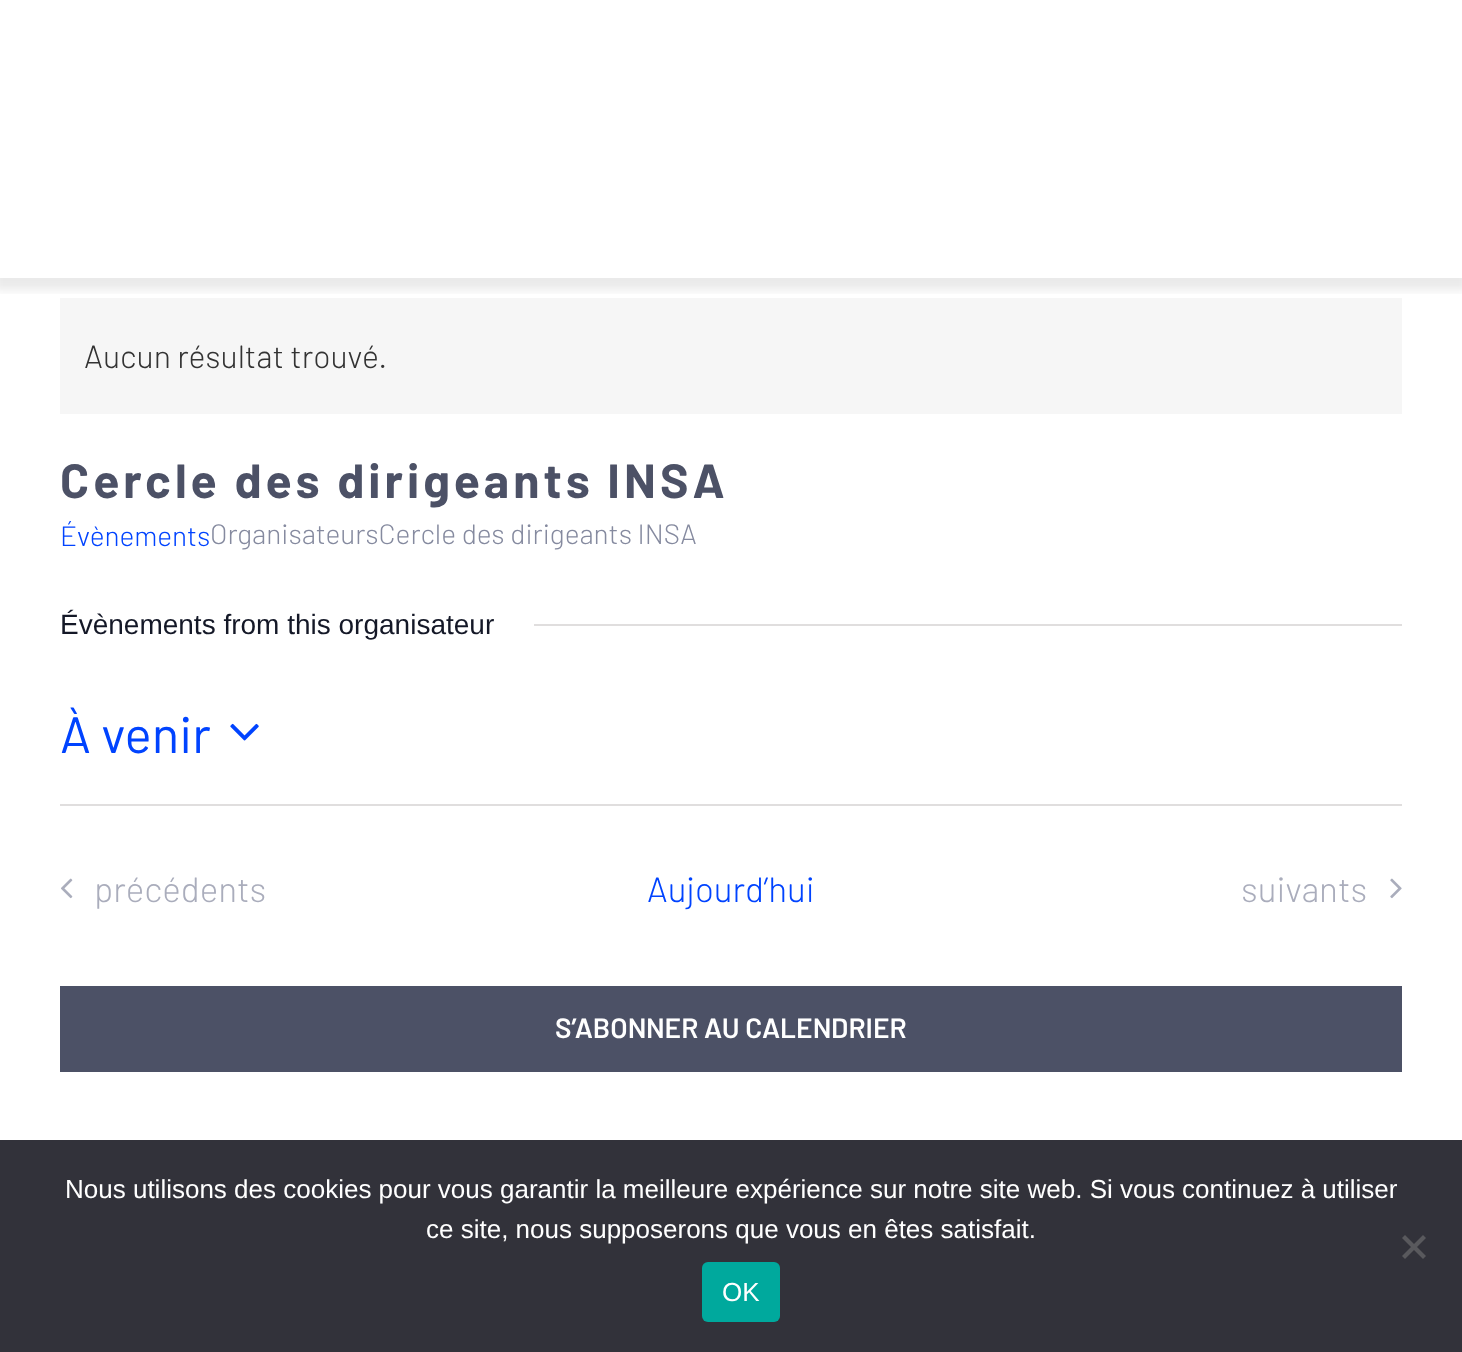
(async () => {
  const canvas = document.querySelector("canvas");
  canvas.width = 1462;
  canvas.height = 1352;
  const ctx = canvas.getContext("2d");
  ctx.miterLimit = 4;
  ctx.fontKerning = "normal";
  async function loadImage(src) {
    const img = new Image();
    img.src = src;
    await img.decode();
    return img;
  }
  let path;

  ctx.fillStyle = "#ffffff";
  ctx.fillRect(0, 0, 1462, 1352);
  ctx.fillStyle = "#f6f6f6";
  ctx.fillRect(60, 298, 1342, 116);
  ctx.save();
  ctx.beginPath();
  ctx.rect(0, 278, 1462, 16);
  ctx.clip();
  ctx.fillStyle = "rgba(51, 51, 51, 0.1)";
  ctx.filter = "blur(5px)";
  ctx.beginPath();
  ctx.rect(-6, 0, 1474, 290);
  ctx.fill();
  ctx.filter = "none";
  ctx.restore();
  ctx.fillStyle = "#e0dede";
  ctx.fillRect(534, 624, 868, 2);
  ctx.drawImage(await loadImage("img/1.png"), 230, 723, 29, 18);
  ctx.fillRect(60, 804, 1342, 2);
  ctx.drawImage(await loadImage("img/2.png"), 61, 878, 12, 21);
  ctx.drawImage(await loadImage("img/3.png"), 1390, 878, 12, 21);
  ctx.fillStyle = "#4c5166";
  ctx.fillRect(60, 986, 1342, 86);
  ctx.fillStyle = "#32323a";
  ctx.fillRect(0, 1140, 1462, 212);
  ctx.fillStyle = "#59595d";
  path = new Path2D("M1423 1235L1426 1238L1405 1259L1402 1256Z");
  ctx.fill(path);
  path = new Path2D("M1402 1238L1405 1235L1426 1256L1423 1259Z");
  ctx.fill(path);
  ctx.fillStyle = "#00a99d";
  ctx.beginPath();
  ctx.roundRect(702, 1262, 78, 60, 6);
  ctx.fill();
  ctx.font = "300 32px Barlow";
  ctx.fillStyle = "#333333";
  ctx.fillText("Aucun résultat trouvé.", 84, 368);
  ctx.letterSpacing = "4px";
  ctx.font = "bold 48px Barlow";
  ctx.fillStyle = "#4c5166";
  ctx.fillText("Cercle des dirigeants INSA", 60, 498);
  ctx.letterSpacing = "0px";
  ctx.font = "300 28px Barlow";
  ctx.fillStyle = "#0043ff";
  ctx.fillText("Évènements", 60, 546);
  ctx.fillStyle = "#858a9f";
  ctx.fillText("OrganisateursCercle des dirigeants INSA", 210, 544);
  ctx.font = "28px Liberation Sans";
  ctx.fillStyle = "#141827";
  ctx.fillText("Évènements from this organisateur", 60, 634);
  ctx.font = "51px Barlow";
  ctx.fillStyle = "#0043ff";
  ctx.fillText("À venir", 60, 753);
  ctx.font = "300 35px Barlow";
  ctx.fillStyle = "#aaadbc";
  ctx.fillText("précédents", 94, 902);
  ctx.fillStyle = "#0043ff";
  ctx.fillText("Aujourd’hui", 647, 902);
  ctx.fillStyle = "#aaadbc";
  ctx.fillText("suivants", 1241, 902);
  ctx.font = "600 28px Barlow";
  ctx.fillStyle = "#ffffff";
  ctx.fillText("S’ABONNER AU CALENDRIER", 555, 1038);
  ctx.font = "26px Liberation Sans";
  for (const [text, x, y] of [
    ["Nous utilisons des cookies pour vous garantir la meilleure expérience sur notre site web. Si vous continuez à utiliser", 65, 1198],
    ["ce site, nous supposerons que vous en êtes satisfait.", 426, 1238],
    ["OK", 722, 1301],
  ]) {
    ctx.fillText(text, x, y);
  }
})();
